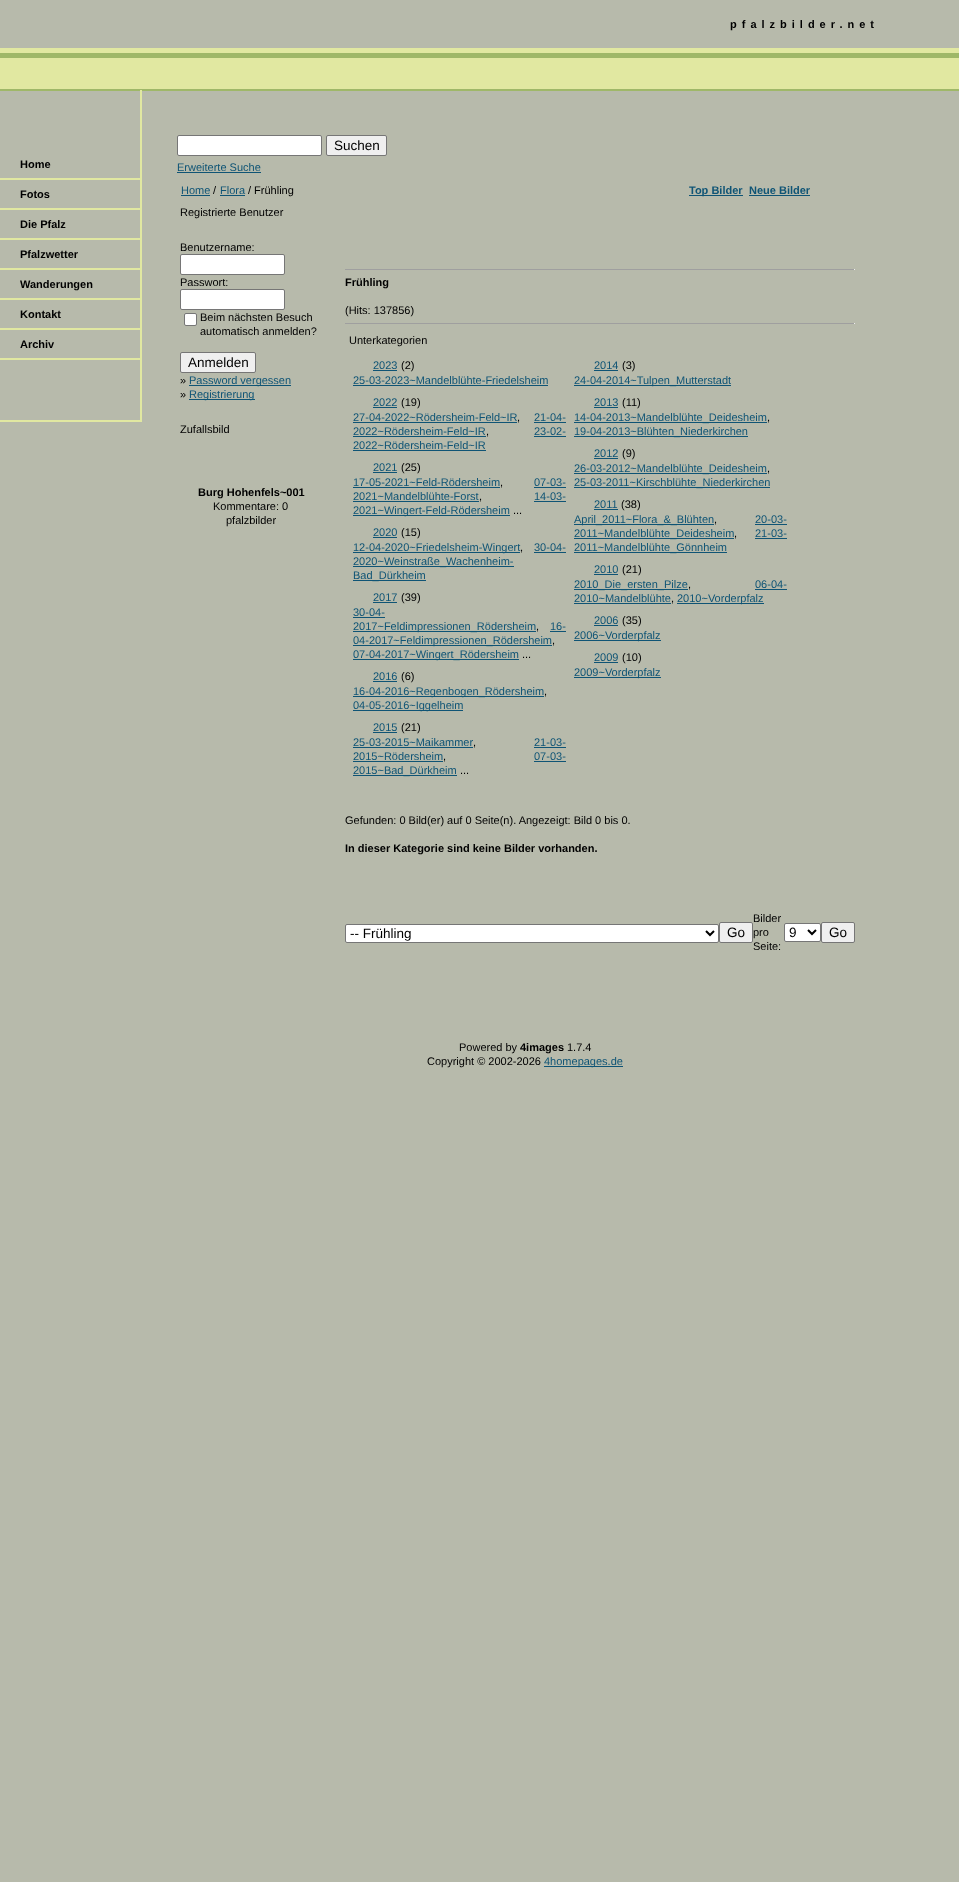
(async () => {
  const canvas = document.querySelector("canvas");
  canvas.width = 959;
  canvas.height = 1882;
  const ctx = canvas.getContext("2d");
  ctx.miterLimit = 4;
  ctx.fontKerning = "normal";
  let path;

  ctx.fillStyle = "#b7baab";
  ctx.fillRect(0, 0, 959, 1882);
  for (const [x, y, w, h, color] of [
    [0, 48, 959, 5, "#e1e8a1"],
    [0, 58, 959, 31, "#e1e8a1"],
    [0, 53, 959, 5, "#9fb868"],
    [0, 89, 959, 2, "#9fb868"],
    [140, 90, 2, 332, "#e1e8a1"],
    [0, 420, 142, 2, "#e1e8a1"],
    [0, 178, 140, 2, "#e1e8a1"],
    [0, 208, 140, 2, "#e1e8a1"],
    [0, 238, 140, 2, "#e1e8a1"],
    [0, 268, 140, 2, "#e1e8a1"],
    [0, 298, 140, 2, "#e1e8a1"],
    [0, 328, 140, 2, "#e1e8a1"],
    [0, 358, 140, 2, "#e1e8a1"],
  ]) {
    ctx.fillStyle = color;
    ctx.fillRect(x, y, w, h);
  }
  ctx.fillStyle = "#ffffff";
  ctx.beginPath();
  ctx.roundRect(177.5, 135.5, 144, 20, 1.5);
  ctx.fill();
  ctx.strokeStyle = "#767676";
  ctx.stroke();
  ctx.fillStyle = "#efefef";
  ctx.beginPath();
  ctx.roundRect(326.5, 135.5, 60, 20, 1.5);
  ctx.fill();
  ctx.stroke();
  for (const [x, y, w, h, color] of [
    [177, 172, 84, 1, "#0f5475"],
    [181, 195, 29, 1, "#0f5475"],
    [220, 195, 25, 1, "#0f5475"],
    [689, 195, 54, 1, "#0f5475"],
    [749, 195, 61, 1, "#0f5475"],
  ]) {
    ctx.fillStyle = color;
    ctx.fillRect(x, y, w, h);
  }
  ctx.fillStyle = "#ffffff";
  ctx.beginPath();
  ctx.roundRect(180.5, 254.5, 104, 20, 1.5);
  ctx.fill();
  ctx.stroke();
  ctx.beginPath();
  ctx.roundRect(180.5, 289.5, 104, 20, 1.5);
  ctx.fill();
  ctx.stroke();
  ctx.beginPath();
  ctx.roundRect(184.5, 313.5, 12, 12, 1.5);
  ctx.fill();
  ctx.stroke();
  ctx.fillStyle = "#efefef";
  ctx.beginPath();
  ctx.roundRect(180.5, 352.5, 75, 20, 1.5);
  ctx.fill();
  ctx.stroke();
  for (const [x, y, w, h, color] of [
    [189, 385, 102, 1, "#0f5475"],
    [189, 399, 66, 1, "#0f5475"],
    [345, 269, 510, 1, "#9f9f9f"],
    [854, 269, 1, 1, "#eeeeee"],
    [345, 323, 510, 1, "#9f9f9f"],
    [854, 323, 1, 1, "#eeeeee"],
    [373, 370, 24, 1, "#0f5475"],
    [353, 385, 195, 1, "#0f5475"],
    [373, 407, 24, 1, "#0f5475"],
    [353, 422, 164, 1, "#0f5475"],
    [534, 422, 32, 1, "#0f5475"],
    [353, 436, 133, 1, "#0f5475"],
    [534, 436, 32, 1, "#0f5475"],
    [353, 450, 133, 1, "#0f5475"],
    [373, 472, 24, 1, "#0f5475"],
    [353, 487, 147, 1, "#0f5475"],
    [534, 487, 32, 1, "#0f5475"],
    [353, 501, 126, 1, "#0f5475"],
    [534, 501, 32, 1, "#0f5475"],
    [353, 515, 157, 1, "#0f5475"],
    [373, 537, 24, 1, "#0f5475"],
    [353, 552, 167, 1, "#0f5475"],
    [534, 552, 32, 1, "#0f5475"],
    [353, 566, 161, 1, "#0f5475"],
    [353, 580, 73, 1, "#0f5475"],
    [373, 602, 24, 1, "#0f5475"],
    [353, 617, 32, 1, "#0f5475"],
    [353, 631, 183, 1, "#0f5475"],
    [550, 631, 16, 1, "#0f5475"],
    [353, 645, 199, 1, "#0f5475"],
    [353, 659, 166, 1, "#0f5475"],
    [373, 681, 24, 1, "#0f5475"],
    [353, 696, 191, 1, "#0f5475"],
    [353, 710, 110, 1, "#0f5475"],
    [373, 732, 24, 1, "#0f5475"],
    [353, 747, 120, 1, "#0f5475"],
    [534, 747, 32, 1, "#0f5475"],
    [353, 761, 90, 1, "#0f5475"],
    [534, 761, 32, 1, "#0f5475"],
    [353, 775, 104, 1, "#0f5475"],
    [594, 370, 24, 1, "#0f5475"],
    [574, 385, 157, 1, "#0f5475"],
    [594, 407, 24, 1, "#0f5475"],
    [574, 422, 193, 1, "#0f5475"],
    [574, 436, 174, 1, "#0f5475"],
    [594, 458, 24, 1, "#0f5475"],
    [574, 473, 193, 1, "#0f5475"],
    [574, 487, 196, 1, "#0f5475"],
    [594, 509, 24, 1, "#0f5475"],
    [574, 524, 140, 1, "#0f5475"],
    [755, 524, 32, 1, "#0f5475"],
    [574, 538, 160, 1, "#0f5475"],
    [755, 538, 32, 1, "#0f5475"],
    [574, 552, 153, 1, "#0f5475"],
    [594, 574, 24, 1, "#0f5475"],
    [574, 589, 114, 1, "#0f5475"],
    [755, 589, 32, 1, "#0f5475"],
    [574, 603, 97, 1, "#0f5475"],
    [677, 603, 87, 1, "#0f5475"],
    [594, 625, 24, 1, "#0f5475"],
    [574, 640, 87, 1, "#0f5475"],
    [594, 662, 24, 1, "#0f5475"],
    [574, 677, 87, 1, "#0f5475"],
  ]) {
    ctx.fillStyle = color;
    ctx.fillRect(x, y, w, h);
  }
  ctx.fillStyle = "#ffffff";
  ctx.beginPath();
  ctx.roundRect(345.5, 924.5, 373, 18, 1.5);
  ctx.fill();
  ctx.stroke();
  path = new Path2D("M706 931L710 935L714 931");
  ctx.strokeStyle = "#000000";
  ctx.lineWidth = 2;
  ctx.stroke(path);
  ctx.fillStyle = "#efefef";
  ctx.beginPath();
  ctx.roundRect(719.5, 922.5, 33, 20, 1.5);
  ctx.fill();
  ctx.strokeStyle = "#767676";
  ctx.lineWidth = 1;
  ctx.stroke();
  ctx.fillStyle = "#ffffff";
  ctx.beginPath();
  ctx.roundRect(784.5, 923.5, 36, 18, 1.5);
  ctx.fill();
  ctx.stroke();
  path = new Path2D("M808 930L812 934L816 930");
  ctx.strokeStyle = "#000000";
  ctx.lineWidth = 2;
  ctx.stroke(path);
  ctx.fillStyle = "#efefef";
  ctx.beginPath();
  ctx.roundRect(821.5, 922.5, 33, 20, 1.5);
  ctx.fill();
  ctx.strokeStyle = "#767676";
  ctx.lineWidth = 1;
  ctx.stroke();
  ctx.fillStyle = "#0f5475";
  ctx.fillRect(544, 1066, 79, 1);
  ctx.letterSpacing = "5px";
  ctx.font = "bold 11px Liberation Sans";
  ctx.fillStyle = "#000000";
  ctx.fillText("pfalzbilder.net", 730, 28);
  ctx.letterSpacing = "0px";
  for (const [text, x, y] of [
    ["Home", 20, 168],
    ["Fotos", 20, 198],
    ["Die Pfalz", 20, 228],
    ["Pfalzwetter", 20, 258],
    ["Wanderungen", 20, 288],
    ["Kontakt", 20, 318],
    ["Archiv", 20, 348],
  ]) {
    ctx.fillText(text, x, y);
  }
  ctx.font = "13.5px Liberation Sans";
  ctx.fillText("Suchen", 334, 150);
  ctx.font = "11px Liberation Sans";
  ctx.fillStyle = "#0f5475";
  ctx.fillText("Erweiterte Suche", 177, 171);
  ctx.fillText("Home", 181, 194);
  ctx.fillStyle = "#000000";
  ctx.fillText("/", 213, 194);
  ctx.fillStyle = "#0f5475";
  ctx.fillText("Flora", 220, 194);
  ctx.fillStyle = "#000000";
  ctx.fillText("/ Frühling", 248, 194);
  ctx.font = "bold 11px Liberation Sans";
  ctx.fillStyle = "#0f5475";
  ctx.fillText("Top Bilder", 689, 194);
  ctx.fillText("Neue Bilder", 749, 194);
  ctx.font = "11px Liberation Sans";
  ctx.fillStyle = "#000000";
  for (const [text, x, y] of [
    ["Registrierte Benutzer", 180, 216],
    ["Benutzername:", 180, 251],
    ["Passwort:", 180, 286],
    ["Beim nächsten Besuch", 200, 321],
    ["automatisch anmelden?", 200, 335],
  ]) {
    ctx.fillText(text, x, y);
  }
  ctx.font = "13.5px Liberation Sans";
  ctx.fillText("Anmelden", 188, 367);
  ctx.font = "11px Liberation Sans";
  ctx.fillText("»", 180, 384);
  ctx.fillStyle = "#0f5475";
  ctx.fillText("Password vergessen", 189, 384);
  ctx.fillStyle = "#000000";
  ctx.fillText("»", 180, 398);
  ctx.fillStyle = "#0f5475";
  ctx.fillText("Registrierung", 189, 398);
  ctx.fillStyle = "#000000";
  ctx.fillText("Zufallsbild", 180, 433);
  ctx.font = "bold 11px Liberation Sans";
  ctx.fillText("Burg Hohenfels~001", 198, 496);
  ctx.font = "11px Liberation Sans";
  ctx.fillText("Kommentare: 0", 213, 510);
  ctx.fillText("pfalzbilder", 226, 524);
  ctx.font = "bold 11px Liberation Sans";
  ctx.fillText("Frühling", 345, 286);
  ctx.font = "11px Liberation Sans";
  ctx.fillText("(Hits: 137856)", 345, 314);
  ctx.fillText("Unterkategorien", 349, 344);
  ctx.fillStyle = "#0f5475";
  ctx.fillText("2023", 373, 369);
  ctx.fillStyle = "#000000";
  ctx.fillText("(2)", 401, 369);
  ctx.fillStyle = "#0f5475";
  ctx.fillText("25-03-2023~Mandelblühte-Friedelsheim", 353, 384);
  ctx.fillText("2022", 373, 406);
  ctx.fillStyle = "#000000";
  ctx.fillText("(19)", 401, 406);
  ctx.fillStyle = "#0f5475";
  ctx.fillText("27-04-2022~Rödersheim-Feld~IR", 353, 421);
  ctx.fillStyle = "#000000";
  ctx.fillText(",", 517, 421);
  ctx.fillStyle = "#0f5475";
  ctx.fillText("21-04-", 534, 421);
  ctx.fillText("2022~Rödersheim-Feld~IR", 353, 435);
  ctx.fillStyle = "#000000";
  ctx.fillText(",", 486, 435);
  ctx.fillStyle = "#0f5475";
  for (const [text, x, y] of [
    ["23-02-", 534, 435],
    ["2022~Rödersheim-Feld~IR", 353, 449],
    ["2021", 373, 471],
  ]) {
    ctx.fillText(text, x, y);
  }
  ctx.fillStyle = "#000000";
  ctx.fillText("(25)", 401, 471);
  ctx.fillStyle = "#0f5475";
  ctx.fillText("17-05-2021~Feld-Rödersheim", 353, 486);
  ctx.fillStyle = "#000000";
  ctx.fillText(",", 500, 486);
  ctx.fillStyle = "#0f5475";
  ctx.fillText("07-03-", 534, 486);
  ctx.fillText("2021~Mandelblühte-Forst", 353, 500);
  ctx.fillStyle = "#000000";
  ctx.fillText(",", 479, 500);
  ctx.fillStyle = "#0f5475";
  ctx.fillText("14-03-", 534, 500);
  ctx.fillText("2021~Wingert-Feld-Rödersheim", 353, 514);
  ctx.fillStyle = "#000000";
  ctx.fillText("...", 513, 514);
  ctx.fillStyle = "#0f5475";
  ctx.fillText("2020", 373, 536);
  ctx.fillStyle = "#000000";
  ctx.fillText("(15)", 401, 536);
  ctx.fillStyle = "#0f5475";
  ctx.fillText("12-04-2020~Friedelsheim-Wingert", 353, 551);
  ctx.fillStyle = "#000000";
  ctx.fillText(",", 520, 551);
  ctx.fillStyle = "#0f5475";
  for (const [text, x, y] of [
    ["30-04-", 534, 551],
    ["2020~Weinstraße_Wachenheim-", 353, 565],
    ["Bad_Dürkheim", 353, 579],
    ["2017", 373, 601],
  ]) {
    ctx.fillText(text, x, y);
  }
  ctx.fillStyle = "#000000";
  ctx.fillText("(39)", 401, 601);
  ctx.fillStyle = "#0f5475";
  ctx.fillText("30-04-", 353, 616);
  ctx.fillText("2017~Feldimpressionen_Rödersheim", 353, 630);
  ctx.fillStyle = "#000000";
  ctx.fillText(",", 536, 630);
  ctx.fillStyle = "#0f5475";
  ctx.fillText("16-", 550, 630);
  ctx.fillText("04-2017~Feldimpressionen_Rödersheim", 353, 644);
  ctx.fillStyle = "#000000";
  ctx.fillText(",", 552, 644);
  ctx.fillStyle = "#0f5475";
  ctx.fillText("07-04-2017~Wingert_Rödersheim", 353, 658);
  ctx.fillStyle = "#000000";
  ctx.fillText("...", 522, 658);
  ctx.fillStyle = "#0f5475";
  ctx.fillText("2016", 373, 680);
  ctx.fillStyle = "#000000";
  ctx.fillText("(6)", 401, 680);
  ctx.fillStyle = "#0f5475";
  ctx.fillText("16-04-2016~Regenbogen_Rödersheim", 353, 695);
  ctx.fillStyle = "#000000";
  ctx.fillText(",", 544, 695);
  ctx.fillStyle = "#0f5475";
  ctx.fillText("04-05-2016~Iggelheim", 353, 709);
  ctx.fillText("2015", 373, 731);
  ctx.fillStyle = "#000000";
  ctx.fillText("(21)", 401, 731);
  ctx.fillStyle = "#0f5475";
  ctx.fillText("25-03-2015~Maikammer", 353, 746);
  ctx.fillStyle = "#000000";
  ctx.fillText(",", 473, 746);
  ctx.fillStyle = "#0f5475";
  ctx.fillText("21-03-", 534, 746);
  ctx.fillText("2015~Rödersheim", 353, 760);
  ctx.fillStyle = "#000000";
  ctx.fillText(",", 443, 760);
  ctx.fillStyle = "#0f5475";
  ctx.fillText("07-03-", 534, 760);
  ctx.fillText("2015~Bad_Dürkheim", 353, 774);
  ctx.fillStyle = "#000000";
  ctx.fillText("...", 460, 774);
  ctx.fillStyle = "#0f5475";
  ctx.fillText("2014", 594, 369);
  ctx.fillStyle = "#000000";
  ctx.fillText("(3)", 622, 369);
  ctx.fillStyle = "#0f5475";
  ctx.fillText("24-04-2014~Tulpen_Mutterstadt", 574, 384);
  ctx.fillText("2013", 594, 406);
  ctx.fillStyle = "#000000";
  ctx.fillText("(11)", 622, 406);
  ctx.fillStyle = "#0f5475";
  ctx.fillText("14-04-2013~Mandelblühte_Deidesheim", 574, 421);
  ctx.fillStyle = "#000000";
  ctx.fillText(",", 767, 421);
  ctx.fillStyle = "#0f5475";
  ctx.fillText("19-04-2013~Blühten_Niederkirchen", 574, 435);
  ctx.fillText("2012", 594, 457);
  ctx.fillStyle = "#000000";
  ctx.fillText("(9)", 622, 457);
  ctx.fillStyle = "#0f5475";
  ctx.fillText("26-03-2012~Mandelblühte_Deidesheim", 574, 472);
  ctx.fillStyle = "#000000";
  ctx.fillText(",", 767, 472);
  ctx.fillStyle = "#0f5475";
  ctx.fillText("25-03-2011~Kirschblühte_Niederkirchen", 574, 486);
  ctx.fillText("2011", 594, 508);
  ctx.fillStyle = "#000000";
  ctx.fillText("(38)", 621, 508);
  ctx.fillStyle = "#0f5475";
  ctx.fillText("April_2011~Flora_&_Blühten", 574, 523);
  ctx.fillStyle = "#000000";
  ctx.fillText(",", 714, 523);
  ctx.fillStyle = "#0f5475";
  ctx.fillText("20-03-", 755, 523);
  ctx.fillText("2011~Mandelblühte_Deidesheim", 574, 537);
  ctx.fillStyle = "#000000";
  ctx.fillText(",", 734, 537);
  ctx.fillStyle = "#0f5475";
  for (const [text, x, y] of [
    ["21-03-", 755, 537],
    ["2011~Mandelblühte_Gönnheim", 574, 551],
    ["2010", 594, 573],
  ]) {
    ctx.fillText(text, x, y);
  }
  ctx.fillStyle = "#000000";
  ctx.fillText("(21)", 622, 573);
  ctx.fillStyle = "#0f5475";
  ctx.fillText("2010_Die_ersten_Pilze", 574, 588);
  ctx.fillStyle = "#000000";
  ctx.fillText(",", 688, 588);
  ctx.fillStyle = "#0f5475";
  ctx.fillText("06-04-", 755, 588);
  ctx.fillText("2010~Mandelblühte", 574, 602);
  ctx.fillStyle = "#000000";
  ctx.fillText(",", 671, 602);
  ctx.fillStyle = "#0f5475";
  ctx.fillText("2010~Vorderpfalz", 677, 602);
  ctx.fillText("2006", 594, 624);
  ctx.fillStyle = "#000000";
  ctx.fillText("(35)", 622, 624);
  ctx.fillStyle = "#0f5475";
  ctx.fillText("2006~Vorderpfalz", 574, 639);
  ctx.fillText("2009", 594, 661);
  ctx.fillStyle = "#000000";
  ctx.fillText("(10)", 622, 661);
  ctx.fillStyle = "#0f5475";
  ctx.fillText("2009~Vorderpfalz", 574, 676);
  ctx.fillStyle = "#000000";
  ctx.fillText("Gefunden: 0 Bild(er) auf 0 Seite(n). Angezeigt: Bild 0 bis 0.", 345, 824);
  ctx.font = "bold 11px Liberation Sans";
  ctx.fillText("In dieser Kategorie sind keine Bilder vorhanden.", 345, 852);
  ctx.font = "13.5px Liberation Sans";
  ctx.fillText("-- Frühling", 350, 938);
  ctx.fillText("Go", 727, 937);
  ctx.font = "11px Liberation Sans";
  for (const [text, x, y] of [
    ["Bilder", 753, 922],
    ["pro", 753, 936],
    ["Seite:", 753, 950],
  ]) {
    ctx.fillText(text, x, y);
  }
  ctx.font = "13.5px Liberation Sans";
  ctx.fillText("9", 789, 937);
  ctx.fillText("Go", 829, 937);
  ctx.font = "11px Liberation Sans";
  ctx.fillText("Powered by", 459, 1051);
  ctx.font = "bold 11px Liberation Sans";
  ctx.fillText("4images", 520, 1051);
  ctx.font = "11px Liberation Sans";
  ctx.fillText("1.7.4", 567, 1051);
  ctx.fillText("Copyright © 2002-2026", 427, 1065);
  ctx.fillStyle = "#0f5475";
  ctx.fillText("4homepages.de", 544, 1065);
})();
